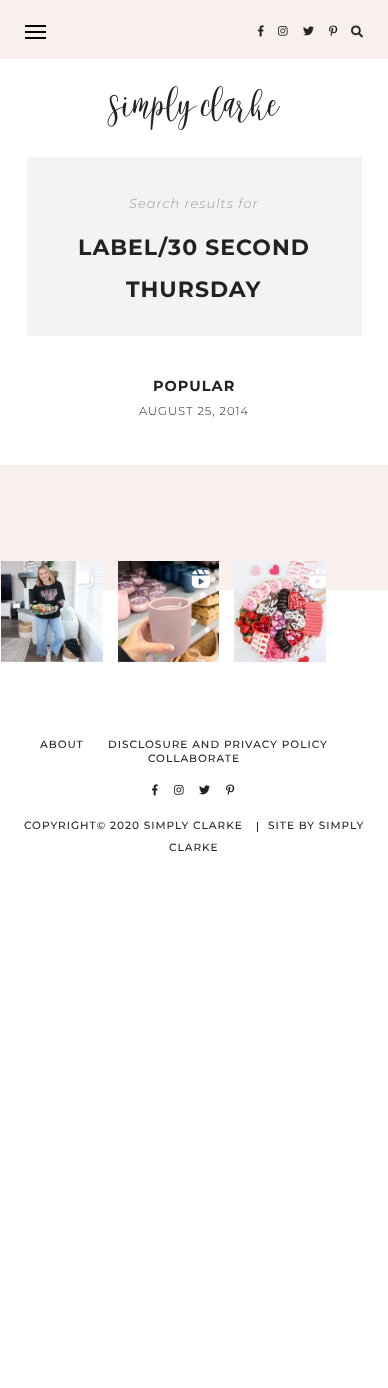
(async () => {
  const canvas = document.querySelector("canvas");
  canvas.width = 388;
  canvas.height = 1388;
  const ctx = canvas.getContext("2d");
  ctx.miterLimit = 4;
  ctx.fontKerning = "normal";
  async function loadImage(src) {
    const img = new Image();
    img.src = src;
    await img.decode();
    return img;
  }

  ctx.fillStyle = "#ffffff";
  ctx.fillRect(0, 0, 388, 1388);
  for (const [x, y, w, h, color] of [
    [0, 0, 388, 59, "#f8f0ed"],
    [25, 25, 21, 2, "#000000"],
    [25, 31, 21, 2, "#000000"],
    [25, 37, 21, 2, "#000000"],
  ]) {
    ctx.fillStyle = color;
    ctx.fillRect(x, y, w, h);
  }
  ctx.drawImage(await loadImage("img/1.png"), 258, 25, 6, 12);
  ctx.drawImage(await loadImage("img/2.png"), 278, 26, 10, 10);
  ctx.drawImage(await loadImage("img/3.png"), 303, 26, 11, 10);
  ctx.drawImage(await loadImage("img/4.png"), 329, 25, 9, 12);
  ctx.drawImage(await loadImage("img/5.png"), 351, 25, 12, 13);
  ctx.drawImage(await loadImage("img/6.png"), 107, 86, 173, 44);
  ctx.fillStyle = "#f3f3f3";
  ctx.fillRect(27, 157, 335, 179);
  ctx.fillStyle = "#f8f0ed";
  ctx.fillRect(0, 465, 388, 125);
  ctx.drawImage(await loadImage("img/7.png"), 1, 561, 102, 101);
  ctx.drawImage(await loadImage("img/8.png"), 78, 571, 16, 18);
  ctx.drawImage(await loadImage("img/9.png"), 118, 561, 101, 101);
  ctx.drawImage(await loadImage("img/10.png"), 191, 569, 21, 22);
  ctx.drawImage(await loadImage("img/11.png"), 234, 561, 92, 101);
  ctx.drawImage(await loadImage("img/12.png"), 308, 569, 18, 22);
  ctx.drawImage(await loadImage("img/13.png"), 152, 784, 6, 12);
  ctx.drawImage(await loadImage("img/14.png"), 174, 785, 10, 10);
  ctx.drawImage(await loadImage("img/15.png"), 199, 785, 11, 10);
  ctx.drawImage(await loadImage("img/16.png"), 226, 784, 9, 12);
  ctx.fillStyle = "#222222";
  ctx.fillRect(257, 822, 1, 10);
  ctx.letterSpacing = "1px";
  ctx.font = "italic 100 13px Montserrat";
  ctx.fillStyle = "#999999";
  ctx.fillText("Search results for", 129, 208);
  ctx.font = "bold 22px Montserrat";
  ctx.fillStyle = "#222222";
  ctx.fillText("LABEL/30 SECOND", 78, 255);
  ctx.fillText("THURSDAY", 126, 297);
  ctx.font = "bold 14.5px Montserrat";
  ctx.fillText("POPULAR", 153, 391);
  ctx.font = "300 11.5px Montserrat";
  ctx.fillText("AUGUST 25, 2014", 139, 415);
  ctx.font = "500 10.5px Montserrat";
  for (const [text, x, y] of [
    ["ABOUT", 40, 748],
    ["DISCLOSURE AND PRIVACY POLICY", 108, 748],
    ["COLLABORATE", 148, 762],
    ["COPYRIGHT© 2020 SIMPLY CLARKE", 24, 829],
    ["SITE BY SIMPLY", 268, 829],
    ["CLARKE", 169, 851],
  ]) {
    ctx.fillText(text, x, y);
  }
})();
